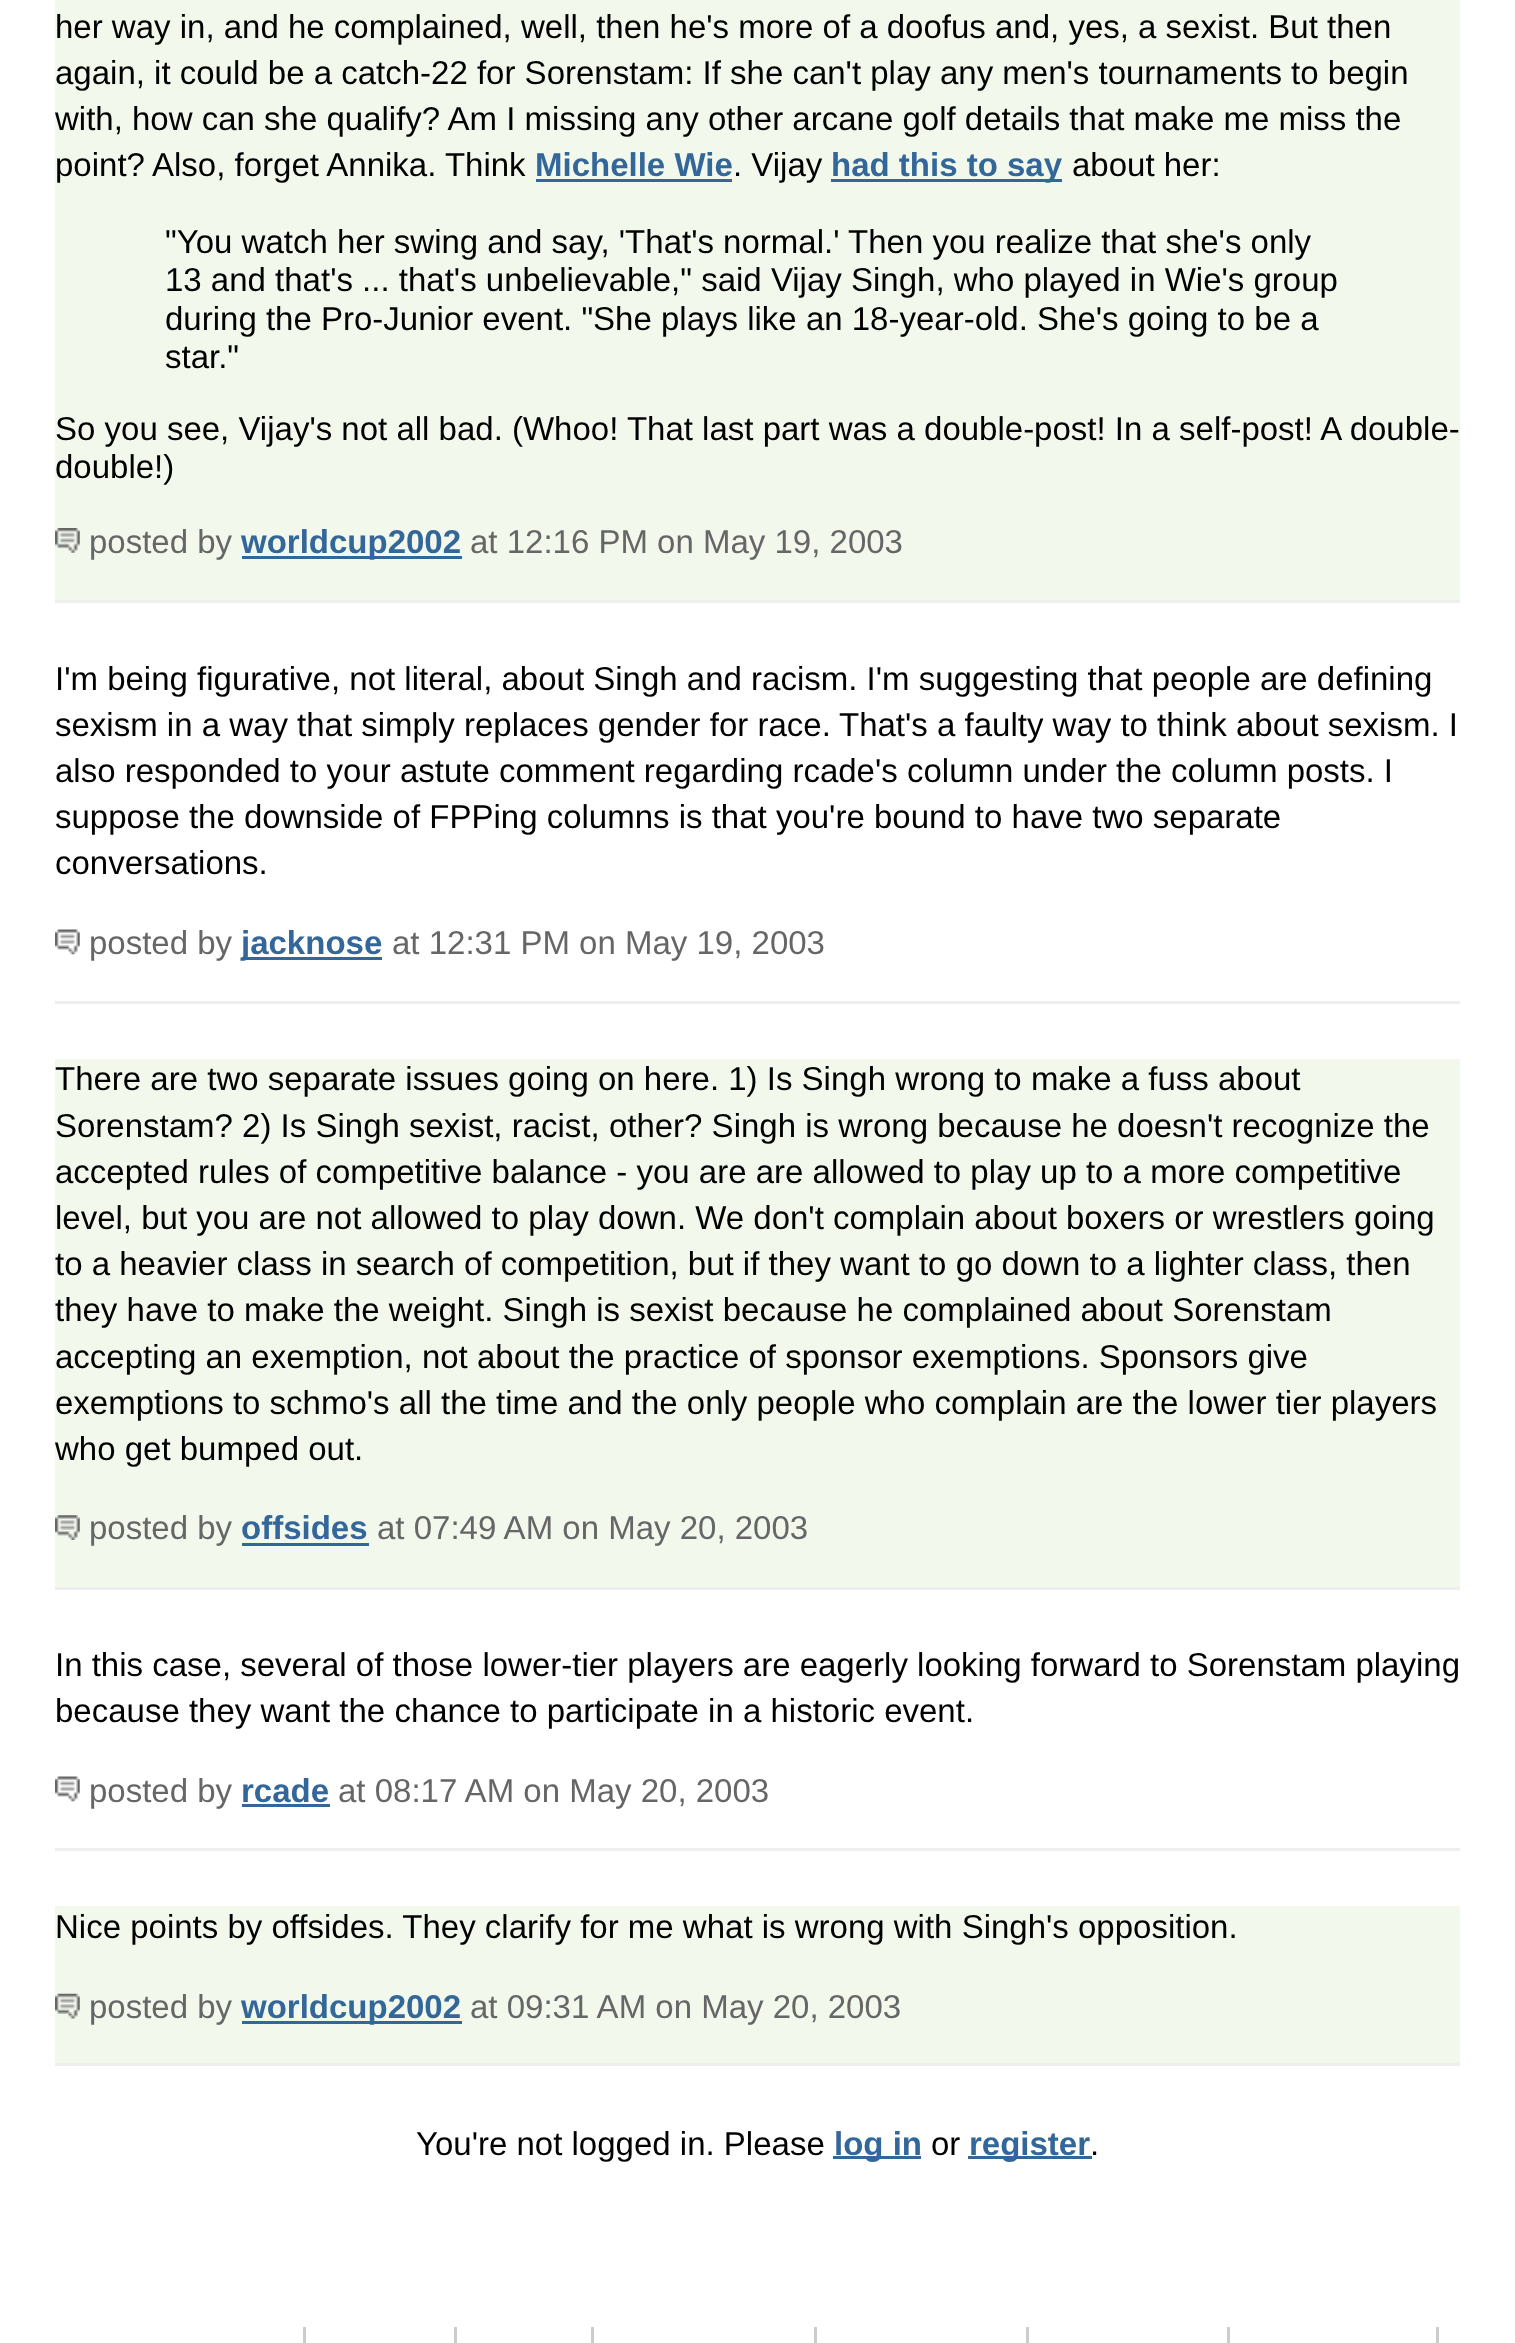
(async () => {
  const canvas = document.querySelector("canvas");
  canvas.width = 1515;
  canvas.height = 2343;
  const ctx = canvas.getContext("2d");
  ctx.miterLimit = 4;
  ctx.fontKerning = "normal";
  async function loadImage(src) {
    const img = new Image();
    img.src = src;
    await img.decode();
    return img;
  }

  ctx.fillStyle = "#ffffff";
  ctx.fillRect(0, 0, 1515, 2343);
  for (const [x, y, w, h, color] of [
    [55, 0, 1405, 600, "#f2f8ec"],
    [55, 600, 1405, 3, "#eeeeee"],
    [536, 179, 196, 3, "#336699"],
    [831, 179, 231, 3, "#336699"],
  ]) {
    ctx.fillStyle = color;
    ctx.fillRect(x, y, w, h);
  }
  ctx.drawImage(await loadImage("img/1.png"), 55, 528, 25, 25);
  ctx.fillRect(242, 556, 220, 3);
  ctx.fillStyle = "#eeeeee";
  ctx.fillRect(55, 1001, 1405, 3);
  ctx.drawImage(await loadImage("img/2.png"), 55, 929, 25, 26);
  for (const [x, y, w, h, color] of [
    [242, 957, 140, 3, "#336699"],
    [55, 1059, 1405, 528, "#f2f8ec"],
    [55, 1587, 1405, 3, "#eeeeee"],
  ]) {
    ctx.fillStyle = color;
    ctx.fillRect(x, y, w, h);
  }
  ctx.drawImage(await loadImage("img/3.png"), 55, 1515, 25, 25);
  ctx.fillStyle = "#336699";
  ctx.fillRect(242, 1543, 127, 3);
  ctx.fillStyle = "#eeeeee";
  ctx.fillRect(55, 1848, 1405, 3);
  ctx.drawImage(await loadImage("img/4.png"), 55, 1776, 25, 26);
  for (const [x, y, w, h, color] of [
    [242, 1804, 88, 3, "#336699"],
    [55, 1906, 1405, 157, "#f2f8ec"],
    [55, 2063, 1405, 3, "#eeeeee"],
  ]) {
    ctx.fillStyle = color;
    ctx.fillRect(x, y, w, h);
  }
  ctx.drawImage(await loadImage("img/5.png"), 55, 1993, 25, 26);
  for (const [x, y, w, h, color] of [
    [242, 2021, 220, 3, "#336699"],
    [833, 2156, 88, 3, "#336699"],
    [968, 2156, 124, 3, "#336699"],
    [303, 2327, 3, 16, "#cccccc"],
    [454, 2327, 3, 16, "#cccccc"],
    [591, 2327, 3, 16, "#cccccc"],
    [814, 2327, 3, 16, "#cccccc"],
    [1026, 2327, 3, 16, "#cccccc"],
    [1227, 2327, 3, 16, "#cccccc"],
    [1436, 2327, 3, 16, "#cccccc"],
  ]) {
    ctx.fillStyle = color;
    ctx.fillRect(x, y, w, h);
  }
  ctx.font = "33px Liberation Sans";
  ctx.fillStyle = "#000000";
  for (const [text, x, y] of [
    ["her way in, and he complained, well, then he's more of a doofus and, yes, a sexist. But then", 55, 38],
    ["again, it could be a catch-22 for Sorenstam: If she can't play any men's tournaments to begin", 55, 84],
    ["with, how can she qualify? Am I missing any other arcane golf details that make me miss the", 55, 130],
    ["point?", 55, 176],
    ["Also, forget Annika. Think", 152, 176],
  ]) {
    ctx.fillText(text, x, y);
  }
  ctx.font = "bold 33px Liberation Sans";
  ctx.fillStyle = "#336699";
  ctx.fillText("Michelle Wie", 535, 176);
  ctx.font = "33px Liberation Sans";
  ctx.fillStyle = "#000000";
  ctx.fillText(". Vijay", 733, 176);
  ctx.font = "bold 33px Liberation Sans";
  ctx.fillStyle = "#336699";
  ctx.fillText("had this to say", 831, 176);
  ctx.font = "33px Liberation Sans";
  ctx.fillStyle = "#000000";
  for (const [text, x, y] of [
    ["about her:", 1072, 176],
    ["\"You watch her swing and say, 'That's normal.' Then you realize that she's only", 165, 253],
    ["13 and that's ... that's unbelievable,\" said Vijay Singh, who played in Wie's group", 165, 291],
    ["during the Pro-Junior event. \"She plays like an 18-year-old. She's going to be a", 165, 330],
    ["star.\"", 165, 368],
    ["So you see, Vijay's not all bad. (Whoo! That last part was a double-post! In a self-post! A double-", 55, 440],
    ["double!)", 55, 478],
  ]) {
    ctx.fillText(text, x, y);
  }
  ctx.fillStyle = "#666666";
  ctx.fillText("posted by", 89, 553);
  ctx.font = "bold 33px Liberation Sans";
  ctx.fillStyle = "#336699";
  ctx.fillText("worldcup2002", 241, 553);
  ctx.font = "33px Liberation Sans";
  ctx.fillStyle = "#666666";
  ctx.fillText("at 12:16 PM on May 19, 2003", 470, 553);
  ctx.fillStyle = "#000000";
  for (const [text, x, y] of [
    ["I'm being figurative, not literal, about Singh and racism. I'm suggesting that people are defining", 55, 690],
    ["sexism in a way that simply replaces gender for race.", 55, 736],
    ["That's a faulty way to think about sexism. I", 839, 736],
    ["also responded to your astute comment regarding rcade's column under the column posts. I", 55, 782],
    ["suppose the downside of FPPing columns is that you're bound to have two separate", 55, 828],
    ["conversations.", 55, 874],
  ]) {
    ctx.fillText(text, x, y);
  }
  ctx.fillStyle = "#666666";
  ctx.fillText("posted by", 89, 954);
  ctx.font = "bold 33px Liberation Sans";
  ctx.fillStyle = "#336699";
  ctx.fillText("jacknose", 241, 954);
  ctx.font = "33px Liberation Sans";
  ctx.fillStyle = "#666666";
  ctx.fillText("at 12:31 PM on May 19, 2003", 392, 954);
  ctx.fillStyle = "#000000";
  for (const [text, x, y] of [
    ["There are two separate issues going on here. 1) Is Singh wrong to make a fuss about", 55, 1090],
    ["Sorenstam? 2) Is Singh sexist, racist, other? Singh is wrong because he doesn't recognize the", 55, 1137],
    ["accepted rules of competitive balance - you are are allowed to play up to a more competitive", 55, 1183],
    ["level, but you are not allowed to play down. We don't complain about boxers or wrestlers going", 55, 1229],
    ["to a heavier class in search of competition, but if they want to go down to a lighter class, then", 55, 1275],
    ["they have to make the weight. Singh is sexist because he complained about Sorenstam", 55, 1321],
    ["accepting an exemption, not about the practice of sponsor exemptions. Sponsors give", 55, 1368],
    ["exemptions to schmo's all the time and the only people who complain are the lower tier players", 55, 1414],
    ["who get bumped out.", 55, 1460],
  ]) {
    ctx.fillText(text, x, y);
  }
  ctx.fillStyle = "#666666";
  ctx.fillText("posted by", 89, 1539);
  ctx.font = "bold 33px Liberation Sans";
  ctx.fillStyle = "#336699";
  ctx.fillText("offsides", 241, 1539);
  ctx.font = "33px Liberation Sans";
  ctx.fillStyle = "#666666";
  ctx.fillText("at 07:49 AM on May 20, 2003", 377, 1539);
  ctx.fillStyle = "#000000";
  ctx.fillText("In this case, several of those lower-tier players are eagerly looking forward to Sorenstam playing", 55, 1676);
  ctx.fillText("because they want the chance to participate in a historic event.", 55, 1722);
  ctx.fillStyle = "#666666";
  ctx.fillText("posted by", 89, 1802);
  ctx.font = "bold 33px Liberation Sans";
  ctx.fillStyle = "#336699";
  ctx.fillText("rcade", 241, 1802);
  ctx.font = "33px Liberation Sans";
  ctx.fillStyle = "#666666";
  ctx.fillText("at 08:17 AM on May 20, 2003", 338, 1802);
  ctx.fillStyle = "#000000";
  ctx.fillText("Nice points by offsides. They clarify for me what is wrong with Singh's opposition.", 55, 1938);
  ctx.fillStyle = "#666666";
  ctx.fillText("posted by", 89, 2018);
  ctx.font = "bold 33px Liberation Sans";
  ctx.fillStyle = "#336699";
  ctx.fillText("worldcup2002", 241, 2018);
  ctx.font = "33px Liberation Sans";
  ctx.fillStyle = "#666666";
  ctx.fillText("at 09:31 AM on May 20, 2003", 470, 2018);
  ctx.fillStyle = "#000000";
  ctx.fillText("You're not logged in. Please", 416, 2155);
  ctx.font = "bold 33px Liberation Sans";
  ctx.fillStyle = "#336699";
  ctx.fillText("log in", 834, 2155);
  ctx.font = "33px Liberation Sans";
  ctx.fillStyle = "#000000";
  ctx.fillText("or", 931, 2155);
  ctx.font = "bold 33px Liberation Sans";
  ctx.fillStyle = "#336699";
  ctx.fillText("register", 969, 2155);
  ctx.font = "33px Liberation Sans";
  ctx.fillStyle = "#000000";
  ctx.fillText(".", 1090, 2155);
})();
